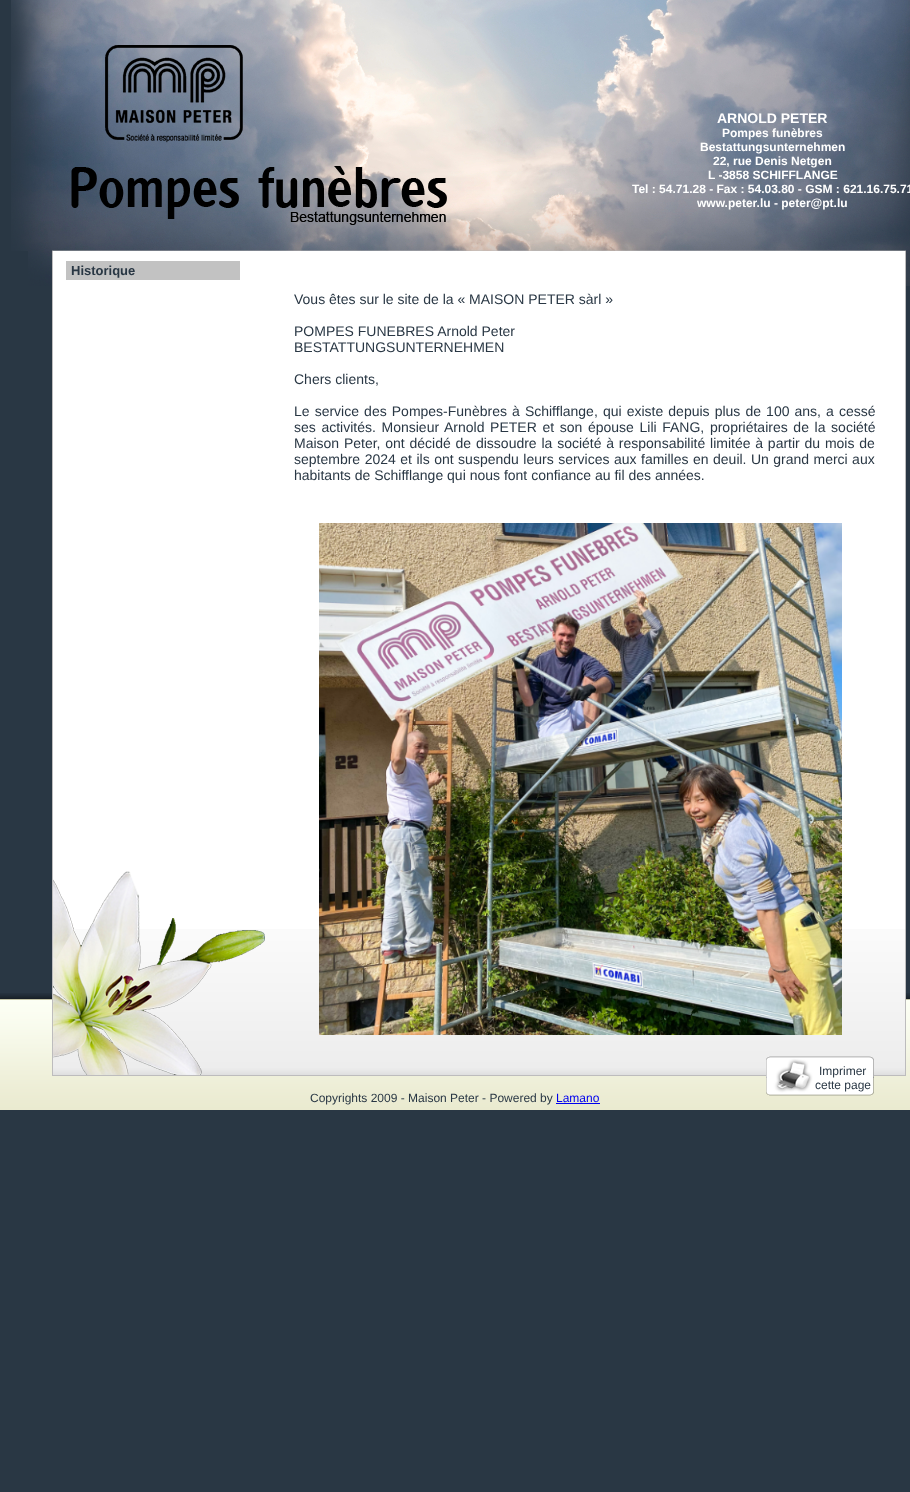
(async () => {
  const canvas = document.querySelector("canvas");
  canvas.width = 910;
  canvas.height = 1492;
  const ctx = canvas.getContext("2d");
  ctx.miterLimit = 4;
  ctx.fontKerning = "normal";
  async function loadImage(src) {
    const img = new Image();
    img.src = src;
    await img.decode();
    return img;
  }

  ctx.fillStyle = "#293744";
  ctx.fillRect(0, 0, 910, 1492);
  ctx.drawImage(await loadImage("img/1.png"), 11, 0, 899, 251);
  ctx.drawImage(await loadImage("img/2.png"), 28, 251, 882, 35);
  ctx.fillStyle = "#ffffff";
  ctx.fillRect(53, 251, 852, 678);
  ctx.drawImage(await loadImage("img/7.png"), 0, 993, 910, 117);
  ctx.drawImage(await loadImage("img/3.png"), 53, 929, 852, 146);
  for (const [x, y, w, h, color] of [
    [905, 251, 1, 825, "#bdbcbd"],
    [52, 1075, 854, 1, "#bdbcbd"],
    [52, 251, 1, 825, "#bdbcbd"],
  ]) {
    ctx.fillStyle = color;
    ctx.fillRect(x, y, w, h);
  }
  ctx.drawImage(await loadImage("img/4.png"), 53, 871, 212, 204);
  ctx.fillStyle = "#c2c2c2";
  ctx.fillRect(66, 261, 174, 19);
  ctx.drawImage(await loadImage("img/5.png"), 319, 523, 523, 512);
  ctx.drawImage(await loadImage("img/6.png"), 766, 1056, 108, 40);
  ctx.fillStyle = "#0000ee";
  ctx.fillRect(556, 1103, 44, 1);
  ctx.font = "bold 14px Liberation Sans";
  ctx.fillStyle = "#ffffff";
  ctx.fillText("ARNOLD PETER", 717, 123);
  ctx.font = "bold 12px Liberation Sans";
  for (const [text, x, y] of [
    ["Pompes funèbres", 722, 137],
    ["Bestattungsunternehmen", 700, 151],
    ["22, rue Denis Netgen", 713, 165],
    ["L -3858 SCHIFFLANGE", 708, 179],
    ["Tel : 54.71.28 - Fax : 54.03.80 - GSM : 621.16.75.71", 632, 193],
    ["www.peter.lu - peter@pt.lu", 697, 207],
  ]) {
    ctx.fillText(text, x, y);
  }
  ctx.font = "bold 13px Liberation Sans";
  ctx.fillStyle = "#293744";
  ctx.fillText("Historique", 71, 275);
  ctx.font = "14px Liberation Sans";
  for (const [text, x, y] of [
    ["Vous êtes sur le site de la « MAISON PETER sàrl »", 294, 304],
    ["POMPES FUNEBRES Arnold Peter", 294, 336],
    ["BESTATTUNGSUNTERNEHMEN", 294, 352],
    ["Chers clients,", 294, 384],
  ]) {
    ctx.fillText(text, x, y);
  }
  ctx.wordSpacing = "1.2px";
  ctx.fillText("Le service des Pompes-Funèbres à Schifflange, qui existe depuis plus de 100 ans, a cessé", 294, 416);
  ctx.wordSpacing = "1.75px";
  ctx.fillText("ses activités. Monsieur Arnold PETER et son épouse Lili FANG, propriétaires de la société", 294, 432);
  ctx.wordSpacing = "0.9px";
  ctx.fillText("Maison Peter, ont décidé de dissoudre la société à responsabilité limitée à partir du mois de", 294, 448);
  ctx.wordSpacing = "0.6px";
  ctx.fillText("septembre 2024 et ils ont suspendu leurs services aux familles en deuil.", 294, 464);
  ctx.wordSpacing = "0.5px";
  ctx.fillText("Un grand merci aux", 751, 464);
  ctx.wordSpacing = "0px";
  ctx.fillText("habitants de Schifflange qui nous font confiance au fil des années.", 294, 480);
  ctx.font = "12px Liberation Sans";
  for (const [text, x, y] of [
    ["Imprimer", 819, 1075],
    ["cette page", 815, 1089],
    ["Copyrights 2009 - Maison Peter - Powered by", 310, 1102],
  ]) {
    ctx.fillText(text, x, y);
  }
  ctx.fillStyle = "#0000ee";
  ctx.fillText("Lamano", 556, 1102);
})();
